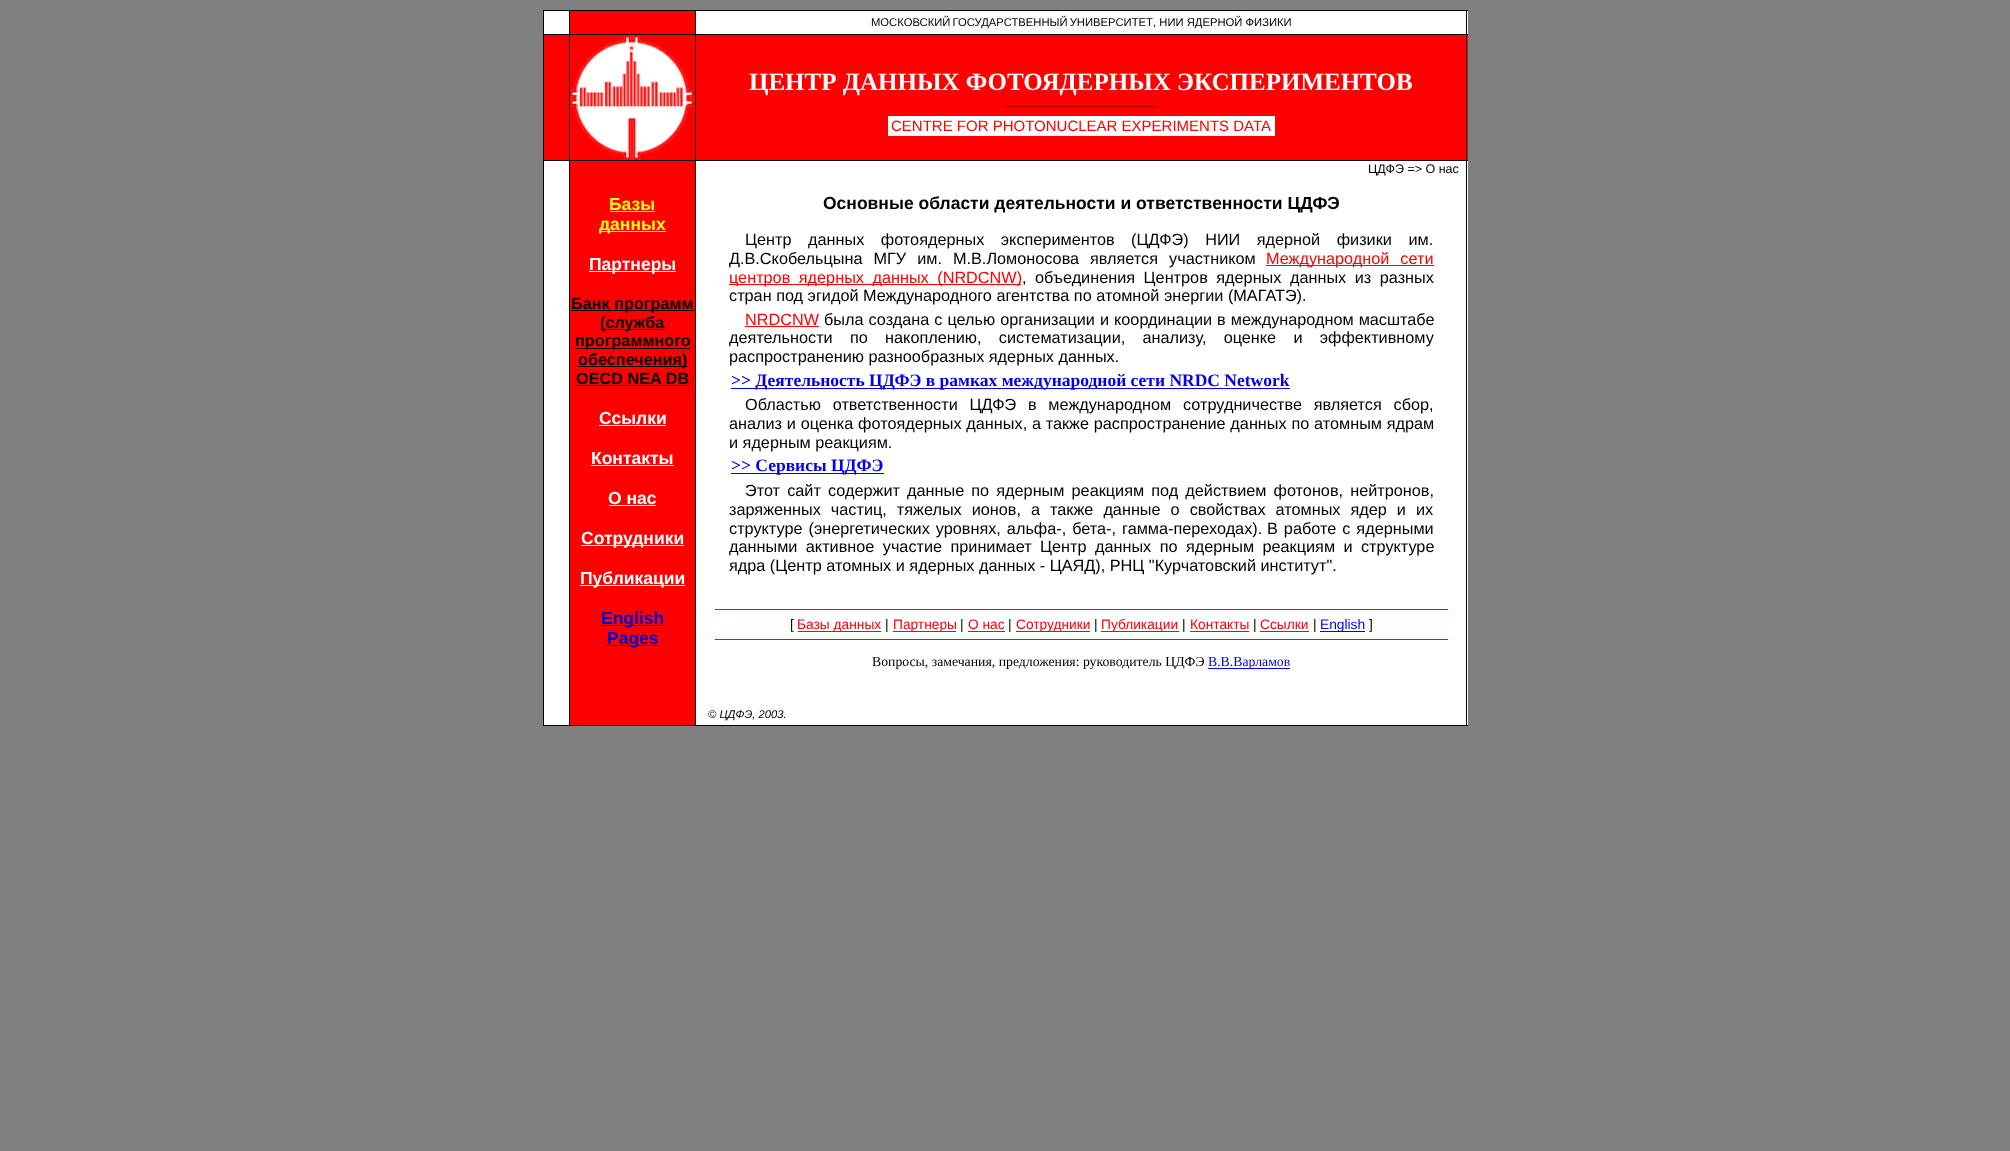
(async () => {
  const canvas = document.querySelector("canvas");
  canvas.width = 2010;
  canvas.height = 1151;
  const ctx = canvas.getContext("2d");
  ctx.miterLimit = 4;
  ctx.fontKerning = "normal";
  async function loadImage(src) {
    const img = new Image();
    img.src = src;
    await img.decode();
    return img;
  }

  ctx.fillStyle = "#808080";
  ctx.fillRect(0, 0, 2010, 1151);
  for (const [x, y, w, h, color] of [
    [544, 11, 924, 714, "#ffffff"],
    [543, 10, 925, 1, "#000000"],
    [696, 35, 772, 125, "#ff0000"],
    [1466, 10, 1, 716, "#000000"],
    [543, 725, 925, 1, "#000000"],
    [543, 10, 1, 716, "#000000"],
    [570, 11, 125, 23, "#ff0000"],
    [695, 34, 773, 1, "#000000"],
    [695, 160, 773, 1, "#000000"],
    [695, 160, 1, 566, "#000000"],
    [569, 160, 127, 1, "#000000"],
    [695, 34, 1, 127, "#000000"],
    [569, 34, 127, 1, "#000000"],
    [569, 160, 1, 566, "#000000"],
    [543, 160, 27, 1, "#000000"],
    [569, 34, 1, 127, "#000000"],
    [543, 34, 27, 1, "#000000"],
    [569, 10, 1, 25, "#000000"],
    [695, 10, 1, 25, "#000000"],
    [544, 35, 25, 125, "#ff0000"],
  ]) {
    ctx.fillStyle = color;
    ctx.fillRect(x, y, w, h);
  }
  ctx.drawImage(await loadImage("img/1.png"), 570, 35, 125, 125);
  for (const [x, y, w, h, color] of [
    [1004, 106, 155, 1, "#a90000"],
    [888, 116, 387, 20, "#ffffff"],
    [570, 161, 125, 564, "#ff0000"],
    [610, 211, 45, 1, "#ffff00"],
    [599, 231, 67, 1, "#ffff00"],
    [589, 271, 87, 1, "#ffffff"],
    [571, 310, 123, 1, "#000000"],
    [600, 329, 65, 1, "#000000"],
    [575, 348, 115, 1, "#000000"],
    [578, 366, 110, 1, "#000000"],
    [576, 385, 113, 1, "#000000"],
    [599, 425, 67, 1, "#ffffff"],
    [591, 465, 83, 1, "#ffffff"],
    [609, 505, 47, 1, "#ffffff"],
    [581, 545, 103, 1, "#ffffff"],
    [580, 585, 105, 1, "#ffffff"],
    [601, 625, 63, 1, "#0000cd"],
    [606, 645, 53, 1, "#0000cd"],
    [1266, 265, 168, 1, "#ff0000"],
    [729, 284, 292, 1, "#ff0000"],
    [745, 326, 74, 1, "#ff0000"],
    [731, 388, 559, 1, "#0000ee"],
    [731, 473, 153, 1, "#0000ee"],
    [715, 609, 733, 1, "#ff0000"],
    [798, 631, 83, 1, "#ff0000"],
    [893, 631, 63, 1, "#ff0000"],
    [968, 631, 37, 1, "#ff0000"],
    [1016, 631, 74, 1, "#ff0000"],
    [1101, 631, 78, 1, "#ff0000"],
    [1190, 631, 59, 1, "#ff0000"],
    [1260, 631, 49, 1, "#ff0000"],
    [1320, 631, 45, 1, "#0000ff"],
    [715, 639, 733, 1, "#ff0000"],
    [1208, 668, 82, 1, "#0000ee"],
  ]) {
    ctx.fillStyle = color;
    ctx.fillRect(x, y, w, h);
  }
  ctx.wordSpacing = "-1px";
  ctx.font = "11.25px Liberation Sans";
  ctx.fillStyle = "#000000";
  ctx.fillText("МОСКОВСКИЙ ГОСУДАРСТВЕННЫЙ УНИВЕРСИТЕТ", 871, 26);
  ctx.wordSpacing = "0px";
  ctx.fillText(", НИИ ЯДЕРНОЙ ФИЗИКИ", 1153, 26);
  ctx.font = "bold 25px Liberation Serif";
  ctx.fillStyle = "#ffffff";
  ctx.fillText("ЦЕНТР ДАННЫХ ФОТОЯДЕРНЫХ ЭКСПЕРИМЕНТОВ", 749, 90);
  ctx.font = "15px Liberation Sans";
  ctx.fillStyle = "#ff0000";
  ctx.fillText("CENTRE FOR PHOTONUCLEAR EXPERIMENTS DATA", 891, 131);
  ctx.font = "bold 17.5px Liberation Sans";
  ctx.fillStyle = "#ffff00";
  ctx.fillText("Базы", 609, 210);
  ctx.fillText("данных", 599, 230);
  ctx.fillStyle = "#ffffff";
  ctx.fillText("Партнеры", 589, 270);
  ctx.font = "bold 16.25px Liberation Sans";
  ctx.fillStyle = "#000000";
  for (const [text, x, y] of [
    ["Банк программ", 571, 309],
    ["(служба", 600, 328],
    ["программного", 575, 346],
    ["обеспечения)", 578, 365],
    ["OECD NEA DB", 576, 384],
  ]) {
    ctx.fillText(text, x, y);
  }
  ctx.font = "bold 17.5px Liberation Sans";
  ctx.fillStyle = "#ffffff";
  for (const [text, x, y] of [
    ["Ссылки", 599, 424],
    ["Контакты", 591, 464],
    ["О нас", 608, 504],
    ["Сотрудники", 581, 544],
    ["Публикации", 580, 584],
  ]) {
    ctx.fillText(text, x, y);
  }
  ctx.fillStyle = "#0000cd";
  ctx.fillText("English", 601, 624);
  ctx.fillText("Pages", 607, 644);
  ctx.font = "12.5px Liberation Sans";
  ctx.fillStyle = "#000000";
  ctx.fillText("ЦДФЭ => О нас", 1368, 173);
  ctx.font = "bold 17.5px Liberation Sans";
  ctx.fillText("Основные области деятельности и ответственности ЦДФЭ", 823, 209);
  ctx.wordSpacing = "12px";
  ctx.font = "16.25px Liberation Sans";
  ctx.fillText("Центр данных фотоядерных экспериментов (ЦДФЭ) НИИ ядерной физики им.", 745, 245);
  ctx.wordSpacing = "6.5px";
  ctx.fillText("Д.В.Скобельцына МГУ им. М.В.Ломоносова", 729, 264);
  ctx.fillText("является участником", 1090, 264);
  ctx.fillStyle = "#ff0000";
  ctx.fillText("Международной сети", 1266, 264);
  ctx.wordSpacing = "4px";
  ctx.fillText("центров ядерных данных (NRDCNW)", 729, 283);
  ctx.wordSpacing = "0px";
  ctx.fillStyle = "#000000";
  ctx.fillText(",", 1022, 283);
  ctx.wordSpacing = "4px";
  ctx.fillText("объединения Центров ядерных данных из разных", 1035, 283);
  ctx.wordSpacing = "0px";
  ctx.fillText("стран под эгидой Международного агентства по атомной энергии (МАГАТЭ).", 729, 301);
  ctx.fillStyle = "#ff0000";
  ctx.fillText("NRDCNW", 745, 325);
  ctx.wordSpacing = "0.5px";
  ctx.fillStyle = "#000000";
  ctx.fillText("была создана с целью организации и координации в международном масштабе", 824, 325);
  ctx.wordSpacing = "0px";
  ctx.fillText("деятельности", 729, 343);
  ctx.wordSpacing = "12.75px";
  ctx.fillText("по накоплению, систематизации, анализу, оценке и эффективному", 850, 343);
  ctx.wordSpacing = "0px";
  ctx.fillText("распространению разнообразных ядерных данных.", 729, 362);
  ctx.font = "bold 17.5px Liberation Serif";
  ctx.fillStyle = "#0000ee";
  ctx.fillText(">> Деятельность ЦДФЭ в рамках международной сети NRDC Network", 731, 386);
  ctx.wordSpacing = "7.25px";
  ctx.font = "16.25px Liberation Sans";
  ctx.fillStyle = "#000000";
  ctx.fillText("Областью ответственности ЦДФЭ в международном сотрудничестве является сбор,", 745, 410);
  ctx.wordSpacing = "0.25px";
  ctx.fillText("анализ и оценка фотоядерных данных, а также распространение данных по атомным ядрам", 729, 429);
  ctx.wordSpacing = "0px";
  ctx.fillText("и ядерным реакциям.", 729, 448);
  ctx.font = "bold 17.5px Liberation Serif";
  ctx.fillStyle = "#0000ee";
  ctx.fillText(">> Сервисы ЦДФЭ", 731, 471);
  ctx.wordSpacing = "2.6px";
  ctx.font = "16.25px Liberation Sans";
  ctx.fillStyle = "#000000";
  ctx.fillText("Этот сайт содержит данные по ядерным реакциям под действием фотонов, нейтронов,", 745, 496);
  ctx.wordSpacing = "5.5px";
  ctx.fillText("заряженных частиц, тяжелых ионов,", 729, 515);
  ctx.fillText("а также данные о свойствах атомных ядер и их", 1031, 515);
  ctx.wordSpacing = "1.5px";
  ctx.fillText("структуре (энергетических уровнях, альфа-, бета-, гамма-переходах).", 729, 534);
  ctx.fillText("В работе с ядерными", 1267, 534);
  ctx.wordSpacing = "3.9px";
  ctx.fillText("данными активное участие принимает Центр данных по ядерным реакциям и структуре", 729, 552);
  ctx.wordSpacing = "0px";
  ctx.fillText("ядра (Центр атомных и ядерных данных - ЦАЯД), РНЦ \"Курчатовский институт\".", 729, 571);
  ctx.font = "13.75px Liberation Sans";
  ctx.fillText("[", 790, 629);
  ctx.fillStyle = "#ff0000";
  ctx.fillText("Базы данных", 797, 629);
  ctx.fillStyle = "#000000";
  ctx.fillText("|", 885, 629);
  ctx.fillStyle = "#ff0000";
  ctx.fillText("Партнеры", 893, 629);
  ctx.fillStyle = "#000000";
  ctx.fillText("|", 960, 629);
  ctx.fillStyle = "#ff0000";
  ctx.fillText("О нас", 968, 629);
  ctx.fillStyle = "#000000";
  ctx.fillText("|", 1008, 629);
  ctx.fillStyle = "#ff0000";
  ctx.fillText("Сотрудники", 1016, 629);
  ctx.fillStyle = "#000000";
  ctx.fillText("|", 1094, 629);
  ctx.fillStyle = "#ff0000";
  ctx.fillText("Публикации", 1101, 629);
  ctx.fillStyle = "#000000";
  ctx.fillText("|", 1182, 629);
  ctx.fillStyle = "#ff0000";
  ctx.fillText("Контакты", 1190, 629);
  ctx.fillStyle = "#000000";
  ctx.fillText("|", 1253, 629);
  ctx.fillStyle = "#ff0000";
  ctx.fillText("Ссылки", 1260, 629);
  ctx.fillStyle = "#000000";
  ctx.fillText("|", 1313, 629);
  ctx.fillStyle = "#0000ff";
  ctx.fillText("English", 1320, 629);
  ctx.fillStyle = "#000000";
  ctx.fillText("]", 1369, 629);
  ctx.font = "13.75px Liberation Serif";
  ctx.fillText("Вопросы, замечания, предложения: руководитель ЦДФЭ", 872, 666);
  ctx.fillStyle = "#0000ee";
  ctx.fillText("В.В.Варламов", 1208, 666);
  ctx.font = "italic 11.25px Liberation Sans";
  ctx.fillStyle = "#000000";
  ctx.fillText("© ЦДФЭ, 2003.", 708, 718);
})();
